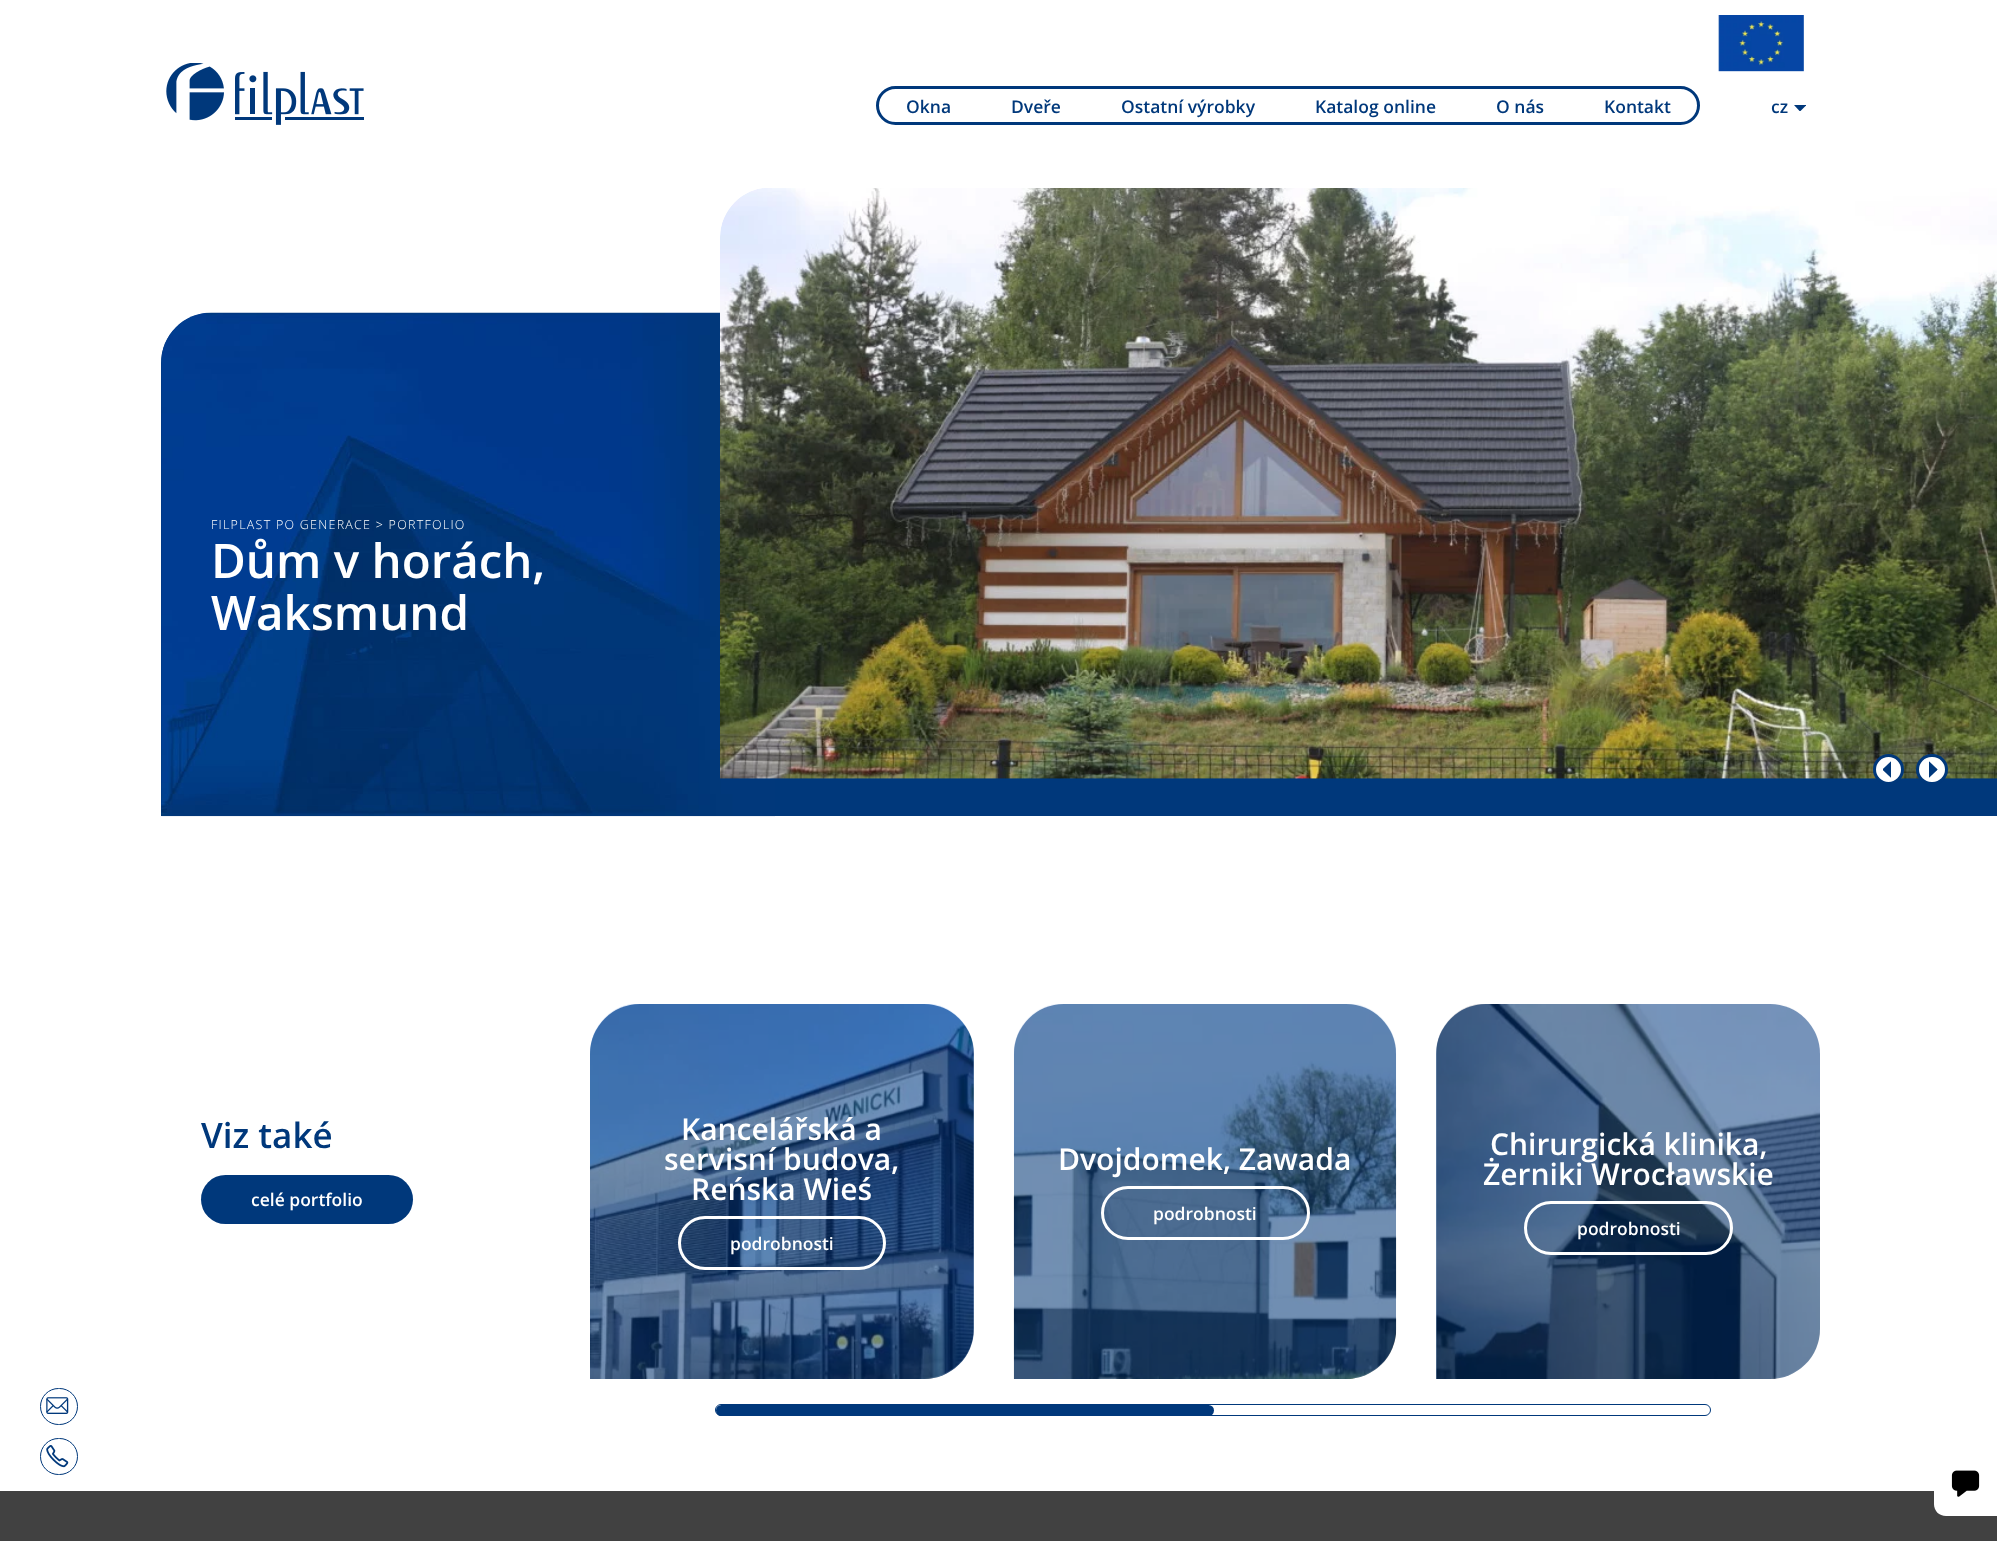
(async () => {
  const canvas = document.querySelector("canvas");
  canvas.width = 1997;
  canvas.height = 1541;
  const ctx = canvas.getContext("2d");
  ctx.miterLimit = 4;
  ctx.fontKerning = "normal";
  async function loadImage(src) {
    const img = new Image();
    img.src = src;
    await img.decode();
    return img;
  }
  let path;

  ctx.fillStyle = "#ffffff";
  ctx.fillRect(0, 0, 1997, 1541);
  ctx.drawImage(await loadImage("img/1.png"), 166, 63, 198, 62);
  ctx.beginPath();
  ctx.roundRect(40.5, 1388.5, 37, 36, 18);
  ctx.strokeStyle = "#00387b";
  ctx.stroke();
  ctx.drawImage(await loadImage("img/2.png"), 46, 1397, 23, 17);
  ctx.beginPath();
  ctx.roundRect(40.5, 1438.5, 37, 36, 18);
  ctx.stroke();
  ctx.drawImage(await loadImage("img/3.png"), 46, 1445, 23, 23);
  ctx.drawImage(await loadImage("img/4.png"), 1718, 15, 86, 57);
  ctx.beginPath();
  ctx.roundRect(877.5, 87.5, 821, 36, 18);
  ctx.lineWidth = 3;
  ctx.stroke();
  ctx.save();
  ctx.beginPath();
  ctx.rect(1794, 105, 12, 6);
  ctx.clip();
  ctx.fillStyle = "#00387b";
  path = new Path2D("M1806.5 105L1800 111.5L1794 105Z");
  ctx.fill(path, "evenodd");
  ctx.restore();
  ctx.fillStyle = "#00387b";
  path = new Path2D("M211 313H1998V816H161V363C161 335.5 183.5 313 211 313Z");
  ctx.fill(path);
  ctx.drawImage(await loadImage("img/8.png"), 161, 312, 614, 505);
  ctx.drawImage(await loadImage("img/5.png"), 720, 188, 1277, 591);
  ctx.fillStyle = "#ffffff";
  ctx.beginPath();
  ctx.arc(1888.5, 769.5, 14, 0, Math.PI * 2);
  ctx.fill();
  ctx.stroke();
  ctx.drawImage(await loadImage("img/6.png"), 1883, 761, 8, 17);
  ctx.beginPath();
  ctx.roundRect(1917.5, 755.5, 29, 28, 14);
  ctx.fill();
  ctx.stroke();
  ctx.drawImage(await loadImage("img/7.png"), 1929, 761, 9, 17);
  ctx.fillStyle = "#00387b";
  ctx.beginPath();
  ctx.roundRect(201, 1175, 212, 49, 24.5);
  ctx.fill();
  ctx.drawImage(await loadImage("img/9.png"), 590, 1004, 384, 375);
  ctx.fillStyle = "rgba(0, 56, 123, 0.5)";
  ctx.beginPath();
  ctx.roundRect(590, 1004, 384, 375, [50, 50, 50, 0]);
  ctx.fill();
  ctx.beginPath();
  ctx.roundRect(679.5, 1217.5, 205, 51, 25.5);
  ctx.strokeStyle = "#ffffff";
  ctx.stroke();
  ctx.drawImage(await loadImage("img/10.png"), 1013, 1004, 384, 375);
  ctx.beginPath();
  ctx.roundRect(1014, 1004, 382, 375, [50, 50, 50, 0]);
  ctx.fill();
  ctx.beginPath();
  ctx.roundRect(1102.5, 1187.5, 206, 51, 25.5);
  ctx.stroke();
  ctx.drawImage(await loadImage("img/11.png"), 1436, 1004, 384, 375);
  ctx.beginPath();
  ctx.roundRect(1436, 1004, 384, 375, [50, 50, 50, 0]);
  ctx.fill();
  ctx.beginPath();
  ctx.roundRect(1525.5, 1202.5, 206, 51, 25.5);
  ctx.stroke();
  ctx.beginPath();
  ctx.roundRect(715.5, 1404.5, 995, 11, 5.5);
  ctx.strokeStyle = "#00387b";
  ctx.lineWidth = 1;
  ctx.stroke();
  ctx.fillStyle = "#00387b";
  ctx.beginPath();
  ctx.roundRect(716, 1405, 498, 11, 5.5);
  ctx.fill();
  ctx.fillStyle = "#414141";
  ctx.fillRect(0, 1491, 1997, 50);
  ctx.fillStyle = "#ffffff";
  path = new Path2D("M1934 1504V1464C1934 1457 1939 1451 1946 1451H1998V1516H1946C1939 1516 1934 1511 1934 1504Z");
  ctx.fill(path);
  ctx.drawImage(await loadImage("img/12.png"), 1951, 1470, 29, 27);
  ctx.font = "600 17.5px Open Sans";
  ctx.fillStyle = "#00387b";
  for (const [text, x, y] of [
    ["Okna", 906, 113],
    ["Dveře", 1011, 113],
    ["Ostatní výrobky", 1121, 113],
    ["Katalog online", 1315, 113],
    ["O nás", 1496, 113],
    ["Kontakt", 1604, 113],
    ["cz", 1771, 113],
  ]) {
    ctx.fillText(text, x, y);
  }
  ctx.letterSpacing = "1.25px";
  ctx.font = "300 12.5px Open Sans";
  ctx.fillStyle = "#ffffff";
  ctx.fillText("FILPLAST PO GENERACE > PORTFOLIO", 211, 529);
  ctx.letterSpacing = "0px";
  ctx.font = "600 47.5px Open Sans";
  ctx.fillText("Dům v horách,", 211, 578);
  ctx.fillText("Waksmund", 211, 630);
  ctx.font = "600 35px Open Sans";
  ctx.fillStyle = "#00387b";
  ctx.fillText("Viz také", 201, 1148);
  ctx.font = "600 17.5px Open Sans";
  ctx.fillStyle = "#ffffff";
  ctx.fillText("celé portfolio", 251, 1206);
  ctx.font = "600 30px Open Sans";
  for (const [text, x, y] of [
    ["Kancelářská a", 681, 1140],
    ["servisní budova,", 664, 1170],
    ["Reńska Wieś", 691, 1200],
  ]) {
    ctx.fillText(text, x, y);
  }
  ctx.font = "600 17.5px Open Sans";
  ctx.fillText("podrobnosti", 730, 1250);
  ctx.font = "600 30px Open Sans";
  ctx.fillText("Dvojdomek, Zawada", 1058, 1170);
  ctx.font = "600 17.5px Open Sans";
  ctx.fillText("podrobnosti", 1153, 1220);
  ctx.font = "600 30px Open Sans";
  ctx.fillText("Chirurgická klinika,", 1490, 1155);
  ctx.fillText("Żerniki Wrocławskie", 1483, 1185);
  ctx.font = "600 17.5px Open Sans";
  ctx.fillText("podrobnosti", 1577, 1235);
})();
